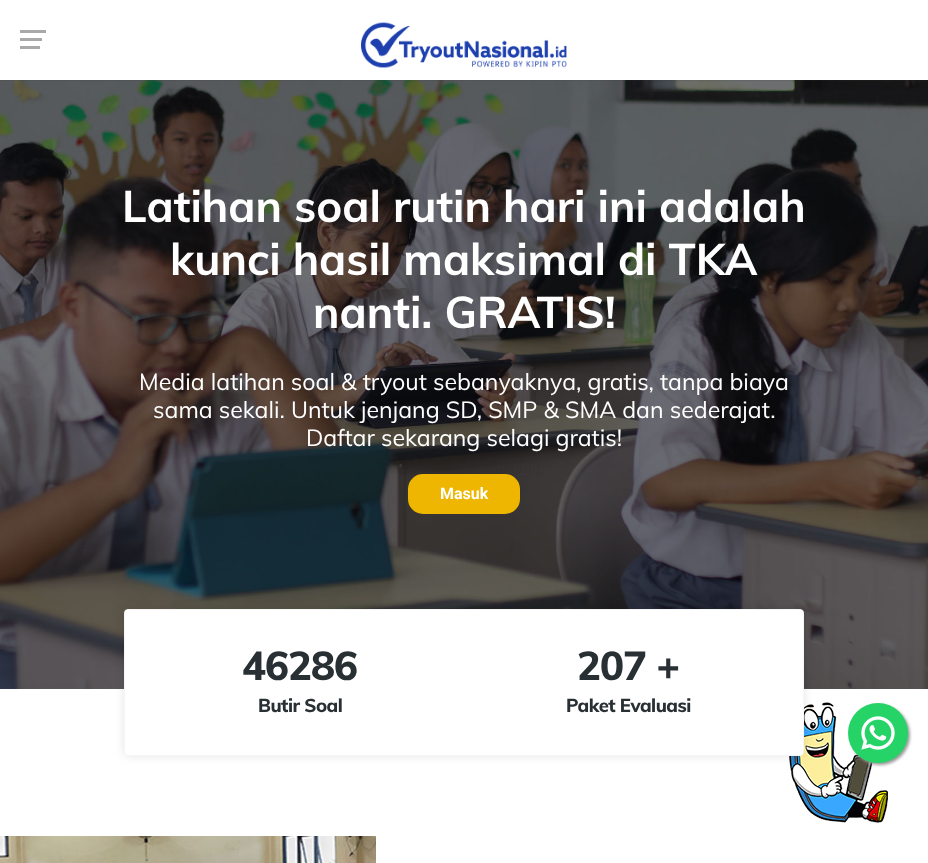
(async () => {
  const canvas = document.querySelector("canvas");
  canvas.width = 928;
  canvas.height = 863;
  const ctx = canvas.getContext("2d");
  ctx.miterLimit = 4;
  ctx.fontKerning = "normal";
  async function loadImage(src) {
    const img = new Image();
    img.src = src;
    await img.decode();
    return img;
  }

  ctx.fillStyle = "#ffffff";
  ctx.fillRect(0, 0, 928, 863);
  ctx.drawImage(await loadImage("img/2.png"), 0, 80, 928, 609);
  ctx.fillStyle = "rgba(50, 50, 50, 0.4)";
  ctx.filter = "blur(1px)";
  ctx.beginPath();
  ctx.rect(0, 0, 928, 80);
  ctx.fill();
  ctx.filter = "none";
  for (const [x, y, w, h, color] of [
    [0, 0, 928, 80, "#ffffff"],
    [20, 38, 22, 3, "#a9a9a9"],
    [20, 30, 26, 3, "#a9a9a9"],
    [20, 46, 20, 3, "#a9a9a9"],
  ]) {
    ctx.fillStyle = color;
    ctx.fillRect(x, y, w, h);
  }
  ctx.drawImage(await loadImage("img/1.png"), 361, 22, 206, 46);
  ctx.fillStyle = "#eeb600";
  ctx.beginPath();
  ctx.roundRect(409, 475, 110, 38, 14);
  ctx.fill();
  ctx.strokeStyle = "#eeb600";
  ctx.lineWidth = 2;
  ctx.stroke();
  ctx.drawImage(await loadImage("img/5.png"), 789, 702, 99, 121);
  ctx.fillStyle = "rgba(0, 0, 0, 0.1)";
  ctx.filter = "blur(5px)";
  ctx.beginPath();
  ctx.roundRect(124, 609, 680, 147, 4);
  ctx.fill();
  ctx.filter = "none";
  ctx.fillStyle = "#ffffff";
  ctx.beginPath();
  ctx.roundRect(124.5, 609.5, 679, 146, 3.5);
  ctx.fill();
  ctx.strokeStyle = "#f5f5f5";
  ctx.lineWidth = 1;
  ctx.stroke();
  ctx.drawImage(await loadImage("img/3.png"), 0, 836, 376, 27);
  ctx.fillStyle = "#999999";
  ctx.filter = "blur(1.5px)";
  ctx.beginPath();
  ctx.roundRect(850, 705, 60, 60, 30);
  ctx.fill();
  ctx.filter = "none";
  ctx.fillStyle = "#25d366";
  ctx.beginPath();
  ctx.arc(878, 733, 30, 0, Math.PI * 2);
  ctx.fill();
  ctx.drawImage(await loadImage("img/4.png"), 861, 716, 34, 34);
  ctx.font = "bold 44px Muli";
  ctx.fillStyle = "#ffffff";
  for (const [text, x, y] of [
    ["Latihan soal rutin hari ini adalah", 122, 222],
    ["kunci hasil maksimal di TKA", 170, 275],
    ["nanti. GRATIS!", 313, 328],
  ]) {
    ctx.fillText(text, x, y);
  }
  ctx.font = "23.2px Muli";
  for (const [text, x, y] of [
    ["Media latihan soal & tryout sebanyaknya, gratis, tanpa biaya", 139, 390],
    ["sama sekali. Untuk jenjang SD, SMP & SMA dan sederajat.", 153, 418],
    ["Daftar sekarang selagi gratis!", 306, 446],
  ]) {
    ctx.fillText(text, x, y);
  }
  ctx.font = "bold 16px Roboto";
  ctx.fillText("Masuk", 440, 499);
  ctx.letterSpacing = "-1px";
  ctx.font = "800 40px Muli";
  ctx.fillStyle = "#283034";
  ctx.fillText("46286", 242, 680);
  ctx.letterSpacing = "-0.5px";
  ctx.font = "800 18.5px Muli";
  ctx.fillText("Butir Soal", 258, 712);
  ctx.letterSpacing = "-1px";
  ctx.font = "800 40px Muli";
  ctx.fillText("207 +", 577, 680);
  ctx.letterSpacing = "-0.5px";
  ctx.font = "800 18.5px Muli";
  ctx.fillText("Paket Evaluasi", 566, 712);
})();
